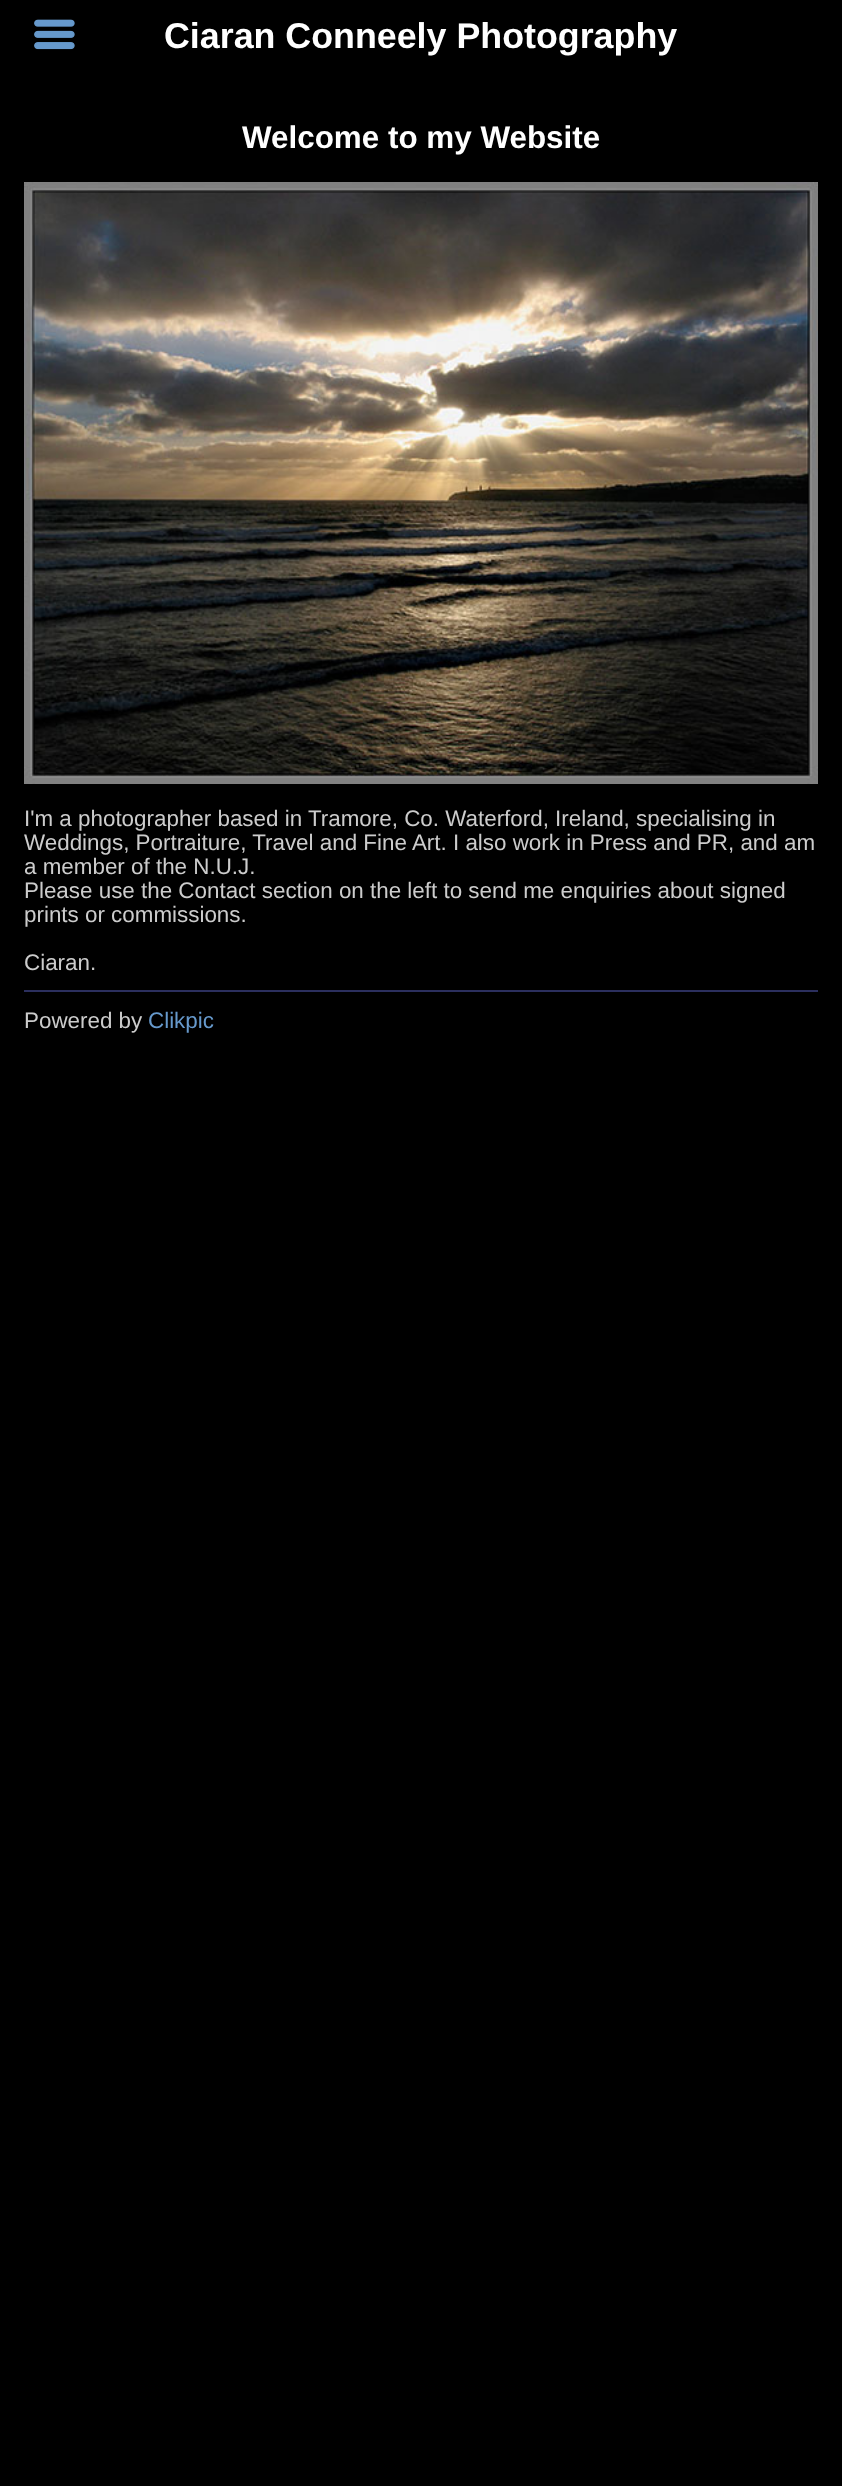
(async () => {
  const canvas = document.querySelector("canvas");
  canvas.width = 842;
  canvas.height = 2486;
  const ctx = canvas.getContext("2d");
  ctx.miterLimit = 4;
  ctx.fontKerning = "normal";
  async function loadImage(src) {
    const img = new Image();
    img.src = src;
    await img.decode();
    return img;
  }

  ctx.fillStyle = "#000000";
  ctx.fillRect(0, 0, 842, 2486);
  ctx.drawImage(await loadImage("img/1.png"), 34, 19, 41, 31);
  ctx.drawImage(await loadImage("img/2.png"), 24, 182, 794, 602);
  ctx.fillStyle = "#2b2f5e";
  ctx.fillRect(24, 990, 794, 2);
  ctx.font = "bold 35.8px Liberation Sans";
  ctx.fillStyle = "#ffffff";
  ctx.fillText("Ciaran Conneely Photography", 164, 48);
  ctx.font = "bold 31.4px Liberation Sans";
  ctx.fillText("Welcome to my Website", 242, 148);
  ctx.font = "22.4px Liberation Sans";
  ctx.fillStyle = "#cccccc";
  for (const [text, x, y] of [
    ["I'm a photographer based in Tramore, Co. Waterford, Ireland, specialising in", 24, 826],
    ["Weddings, Portraiture, Travel and Fine Art. I also work in Press and PR, and am", 24, 850],
    ["a member of the N.U.J.", 24, 874],
    ["Please use the Contact section on the left to send me enquiries about signed", 24, 898],
    ["prints or commissions.", 24, 922],
    ["Ciaran.", 24, 970],
    ["Powered by", 24, 1028],
  ]) {
    ctx.fillText(text, x, y);
  }
  ctx.fillStyle = "#6699cc";
  ctx.fillText("Clikpic", 148, 1028);
})();
